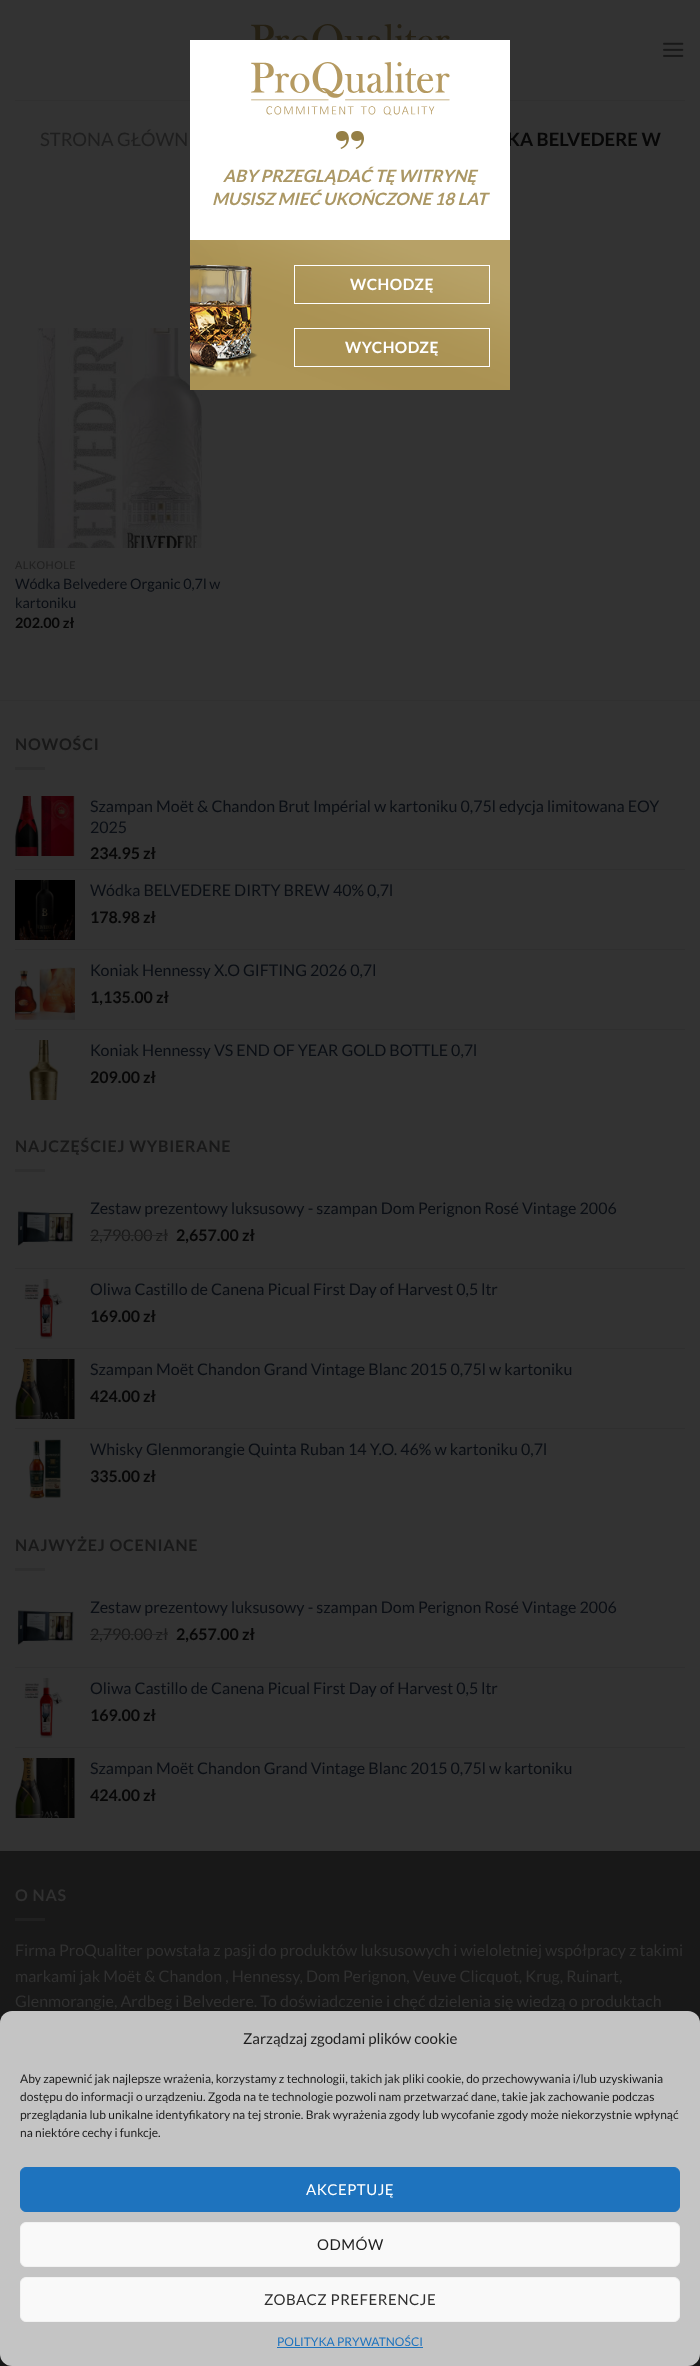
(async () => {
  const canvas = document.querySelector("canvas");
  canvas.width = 700;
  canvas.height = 2366;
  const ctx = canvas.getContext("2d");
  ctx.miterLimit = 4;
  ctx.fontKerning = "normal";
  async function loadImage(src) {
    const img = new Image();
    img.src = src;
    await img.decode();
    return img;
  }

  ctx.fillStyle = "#333333";
  ctx.fillRect(0, 0, 700, 2366);
  ctx.drawImage(await loadImage("img/1.png"), 251, 24, 199, 16);
  ctx.drawImage(await loadImage("img/2.png"), 663, 42, 21, 15);
  ctx.fillStyle = "#303030";
  ctx.fillRect(15, 100, 670, 1);
  ctx.drawImage(await loadImage("img/3.png"), 36, 328, 166, 220);
  ctx.fillRect(0, 700, 700, 1);
  ctx.fillStyle = "#2e2e2e";
  ctx.fillRect(15, 767, 30, 3);
  ctx.drawImage(await loadImage("img/4.png"), 15, 796, 60, 60);
  ctx.fillStyle = "#2f2f2f";
  ctx.fillRect(15, 869, 670, 1);
  ctx.drawImage(await loadImage("img/5.png"), 15, 880, 60, 60);
  ctx.fillRect(15, 949, 670, 1);
  ctx.drawImage(await loadImage("img/6.png"), 15, 967, 60, 53);
  ctx.fillRect(15, 1029, 670, 1);
  ctx.drawImage(await loadImage("img/7.png"), 29, 1040, 30, 60);
  ctx.fillStyle = "#2e2e2e";
  ctx.fillRect(15, 1169, 30, 3);
  ctx.drawImage(await loadImage("img/8.png"), 17, 1211, 57, 35);
  ctx.fillStyle = "#2f2f2f";
  ctx.fillRect(15, 1268, 670, 1);
  ctx.drawImage(await loadImage("img/9.png"), 24, 1279, 39, 60);
  ctx.fillRect(15, 1348, 670, 1);
  ctx.drawImage(await loadImage("img/10.png"), 15, 1359, 60, 60);
  ctx.fillRect(15, 1428, 670, 1);
  ctx.drawImage(await loadImage("img/11.png"), 29, 1439, 32, 60);
  ctx.fillStyle = "#2e2e2e";
  ctx.fillRect(15, 1568, 30, 3);
  ctx.drawImage(await loadImage("img/8.png"), 17, 1610, 57, 35);
  ctx.fillStyle = "#2f2f2f";
  ctx.fillRect(15, 1667, 670, 1);
  ctx.drawImage(await loadImage("img/9.png"), 24, 1678, 39, 60);
  ctx.fillRect(15, 1747, 670, 1);
  ctx.drawImage(await loadImage("img/10.png"), 15, 1758, 60, 60);
  for (const [x, y, w, h, color] of [
    [0, 1852, 700, 514, "#181818"],
    [0, 1851, 700, 1, "#171717"],
    [15, 1918, 30, 3, "#202020"],
  ]) {
    ctx.fillStyle = color;
    ctx.fillRect(x, y, w, h);
  }
  ctx.drawImage(await loadImage("img/14.png"), 190, 240, 320, 150);
  ctx.strokeStyle = "#ffffff";
  ctx.strokeRect(294.5, 265.5, 195, 38);
  ctx.strokeRect(294.5, 328.5, 195, 38);
  ctx.fillStyle = "#c4c4c4";
  ctx.beginPath();
  ctx.roundRect(0, 2011, 700, 355, 12);
  ctx.fill();
  ctx.fillStyle = "#1e73be";
  ctx.beginPath();
  ctx.roundRect(20.5, 2167.5, 659, 44, 5.5);
  ctx.fill();
  ctx.strokeStyle = "#1e73be";
  ctx.stroke();
  ctx.fillStyle = "#f9f9f9";
  ctx.beginPath();
  ctx.roundRect(20.5, 2222.5, 659, 44, 5.5);
  ctx.fill();
  ctx.strokeStyle = "#f2f2f2";
  ctx.stroke();
  ctx.beginPath();
  ctx.roundRect(20.5, 2277.5, 659, 44, 5.5);
  ctx.fill();
  ctx.stroke();
  ctx.fillStyle = "#1e73be";
  ctx.fillRect(277, 2347, 146, 1);
  ctx.font = "18.5px Lato";
  ctx.fillStyle = "#1e1e1e";
  ctx.fillText("STRONA GŁÓWN", 40, 146);
  ctx.font = "bold 18.5px Lato";
  ctx.fillStyle = "#070707";
  ctx.fillText("KA BELVEDERE W", 507, 146);
  ctx.letterSpacing = "0.5px";
  ctx.font = "10.75px Lato";
  ctx.fillStyle = "#1e1e1e";
  ctx.fillText("ALKOHOLE", 15, 569);
  ctx.letterSpacing = "0px";
  ctx.font = "14.4px Lato";
  ctx.fillStyle = "#0a0e14";
  ctx.fillText("Wódka Belvedere Organic 0,7l w", 15, 589);
  ctx.fillText("kartoniku", 15, 608);
  ctx.font = "bold 14.4px Lato";
  ctx.fillStyle = "#070707";
  ctx.fillText("202.00 zł", 15, 628);
  ctx.letterSpacing = "0.8px";
  ctx.font = "bold 16px Lato";
  ctx.fillStyle = "#181818";
  ctx.fillText("NOWOŚCI", 15, 750);
  ctx.letterSpacing = "0px";
  ctx.font = "16px Lato";
  ctx.fillStyle = "#0a0e14";
  ctx.fillText("Szampan Moët & Chandon Brut Impérial w kartoniku 0,75l edycja limitowana EOY", 90, 812);
  ctx.fillText("2025", 90, 833);
  ctx.font = "bold 16px Lato";
  ctx.fillStyle = "#070707";
  ctx.fillText("234.95 zł", 90, 859);
  ctx.font = "16px Lato";
  ctx.fillStyle = "#0a0e14";
  ctx.fillText("Wódka BELVEDERE DIRTY BREW 40% 0,7l", 90, 896);
  ctx.font = "bold 16px Lato";
  ctx.fillStyle = "#070707";
  ctx.fillText("178.98 zł", 90, 923);
  ctx.font = "16px Lato";
  ctx.fillStyle = "#0a0e14";
  ctx.fillText("Koniak Hennessy X.O GIFTING 2026 0,7l", 90, 976);
  ctx.font = "bold 16px Lato";
  ctx.fillStyle = "#070707";
  ctx.fillText("1,135.00 zł", 90, 1003);
  ctx.font = "16px Lato";
  ctx.fillStyle = "#0a0e14";
  ctx.fillText("Koniak Hennessy VS END OF YEAR GOLD BOTTLE 0,7l", 90, 1056);
  ctx.font = "bold 16px Lato";
  ctx.fillStyle = "#070707";
  ctx.fillText("209.00 zł", 90, 1083);
  ctx.letterSpacing = "0.8px";
  ctx.fillStyle = "#181818";
  ctx.fillText("NAJCZĘŚCIEJ WYBIERANE", 15, 1152);
  ctx.letterSpacing = "0px";
  ctx.font = "16px Lato";
  ctx.fillStyle = "#0a0e14";
  ctx.fillText("Zestaw prezentowy luksusowy - szampan Dom Perignon Rosé Vintage 2006", 90, 1214);
  ctx.fillStyle = "#181818";
  ctx.fillText("2,790.00 zł", 90, 1241);
  ctx.fillStyle = "#232323";
  ctx.fillRect(90, 1235, 78, 1);
  ctx.font = "bold 16px Lato";
  ctx.fillStyle = "#070707";
  ctx.fillText("2,657.00 zł", 176, 1241);
  ctx.font = "16px Lato";
  ctx.fillStyle = "#0a0e14";
  ctx.fillText("Oliwa Castillo de Canena Picual First Day of Harvest 0,5 ltr", 90, 1295);
  ctx.font = "bold 16px Lato";
  ctx.fillStyle = "#070707";
  ctx.fillText("169.00 zł", 90, 1322);
  ctx.font = "16px Lato";
  ctx.fillStyle = "#0a0e14";
  ctx.fillText("Szampan Moët Chandon Grand Vintage Blanc 2015 0,75l w kartoniku", 90, 1375);
  ctx.font = "bold 16px Lato";
  ctx.fillStyle = "#070707";
  ctx.fillText("424.00 zł", 90, 1402);
  ctx.font = "16px Lato";
  ctx.fillStyle = "#0a0e14";
  ctx.fillText("Whisky Glenmorangie Quinta Ruban 14 Y.O. 46% w kartoniku 0,7l", 90, 1455);
  ctx.font = "bold 16px Lato";
  ctx.fillStyle = "#070707";
  ctx.fillText("335.00 zł", 90, 1482);
  ctx.letterSpacing = "0.8px";
  ctx.fillStyle = "#181818";
  ctx.fillText("NAJWYŻEJ OCENIANE", 15, 1551);
  ctx.letterSpacing = "0px";
  ctx.font = "16px Lato";
  ctx.fillStyle = "#0a0e14";
  ctx.fillText("Zestaw prezentowy luksusowy - szampan Dom Perignon Rosé Vintage 2006", 90, 1613);
  ctx.fillStyle = "#181818";
  ctx.fillText("2,790.00 zł", 90, 1640);
  ctx.fillStyle = "#232323";
  ctx.fillRect(90, 1634, 78, 1);
  ctx.font = "bold 16px Lato";
  ctx.fillStyle = "#070707";
  ctx.fillText("2,657.00 zł", 176, 1640);
  ctx.font = "16px Lato";
  ctx.fillStyle = "#0a0e14";
  ctx.fillText("Oliwa Castillo de Canena Picual First Day of Harvest 0,5 ltr", 90, 1694);
  ctx.font = "bold 16px Lato";
  ctx.fillStyle = "#070707";
  ctx.fillText("169.00 zł", 90, 1721);
  ctx.font = "16px Lato";
  ctx.fillStyle = "#0a0e14";
  ctx.fillText("Szampan Moët Chandon Grand Vintage Blanc 2015 0,75l w kartoniku", 90, 1774);
  ctx.font = "bold 16px Lato";
  ctx.fillStyle = "#070707";
  ctx.fillText("424.00 zł", 90, 1801);
  ctx.letterSpacing = "0.8px";
  ctx.fillStyle = "#303030";
  ctx.fillText("O NAS", 15, 1901);
  ctx.letterSpacing = "0px";
  ctx.font = "16px Lato";
  for (const [text, x, y] of [
    ["Firma ProQualiter powstała z pasji do produktów luksusowych i wieloletniej współpracy z takimi", 15, 1956],
    ["markami jak Moët & Chandon , Hennessy, Dom Perignon, Veuve Clicquot, Krug, Ruinart,", 15, 1982],
    ["Glenmorangie, Ardbeg i Belvedere. To doświadczenie i chęć dzielenia się wiedzą o produktach", 15, 2007],
  ]) {
    ctx.fillText(text, x, y);
  }
  ctx.fillStyle = "#ffffff";
  ctx.fillRect(190, 40, 320, 200);
  ctx.drawImage(await loadImage("img/12.png"), 251, 62, 199, 54);
  ctx.drawImage(await loadImage("img/13.png"), 336, 131, 28, 18);
  ctx.font = "italic bold 17px Lato";
  ctx.fillStyle = "#ab9764";
  ctx.fillText("ABY PRZEGLĄDAĆ TĘ WITRYNĘ", 223, 182);
  ctx.fillText("MUSISZ MIEĆ UKOŃCZONE 18 LAT", 212, 205);
  ctx.letterSpacing = "0.5px";
  ctx.font = "bold 15.5px Lato";
  ctx.fillStyle = "#ffffff";
  ctx.fillText("WCHODZĘ", 350, 290);
  ctx.fillText("WYCHODZĘ", 345, 353);
  ctx.letterSpacing = "0px";
  ctx.font = "15px Lato";
  ctx.fillStyle = "#1e1e1e";
  ctx.fillText("Zarządzaj zgodami plików cookie", 243, 2044);
  ctx.font = "12px Lato";
  for (const [text, x, y] of [
    ["Aby zapewnić jak najlepsze wrażenia, korzystamy z technologii, takich jak pliki cookie, do przechowywania i/lub uzyskiwania", 20, 2083],
    ["dostępu do informacji o urządzeniu. Zgoda na te technologie pozwoli nam przetwarzać dane, takie jak zachowanie podczas", 20, 2101],
    ["przeglądania lub unikalne identyfikatory na tej stronie. Brak wyrażenia zgody lub wycofanie zgody może niekorzystnie wpłynąć", 20, 2119],
    ["na niektóre cechy i funkcje.", 20, 2137],
  ]) {
    ctx.fillText(text, x, y);
  }
  ctx.letterSpacing = "0.5px";
  ctx.font = "15px Lato";
  ctx.fillStyle = "#ffffff";
  ctx.fillText("AKCEPTUJĘ", 306, 2195);
  ctx.fillStyle = "#1e1e1e";
  ctx.fillText("ODMÓW", 317, 2250);
  ctx.fillStyle = "#303030";
  ctx.fillText("ZOBACZ PREFERENCJE", 264, 2305);
  ctx.letterSpacing = "0px";
  ctx.font = "12px Lato";
  ctx.fillStyle = "#1e73be";
  ctx.fillText("POLITYKA PRYWATNOŚCI", 277, 2346);
})();
